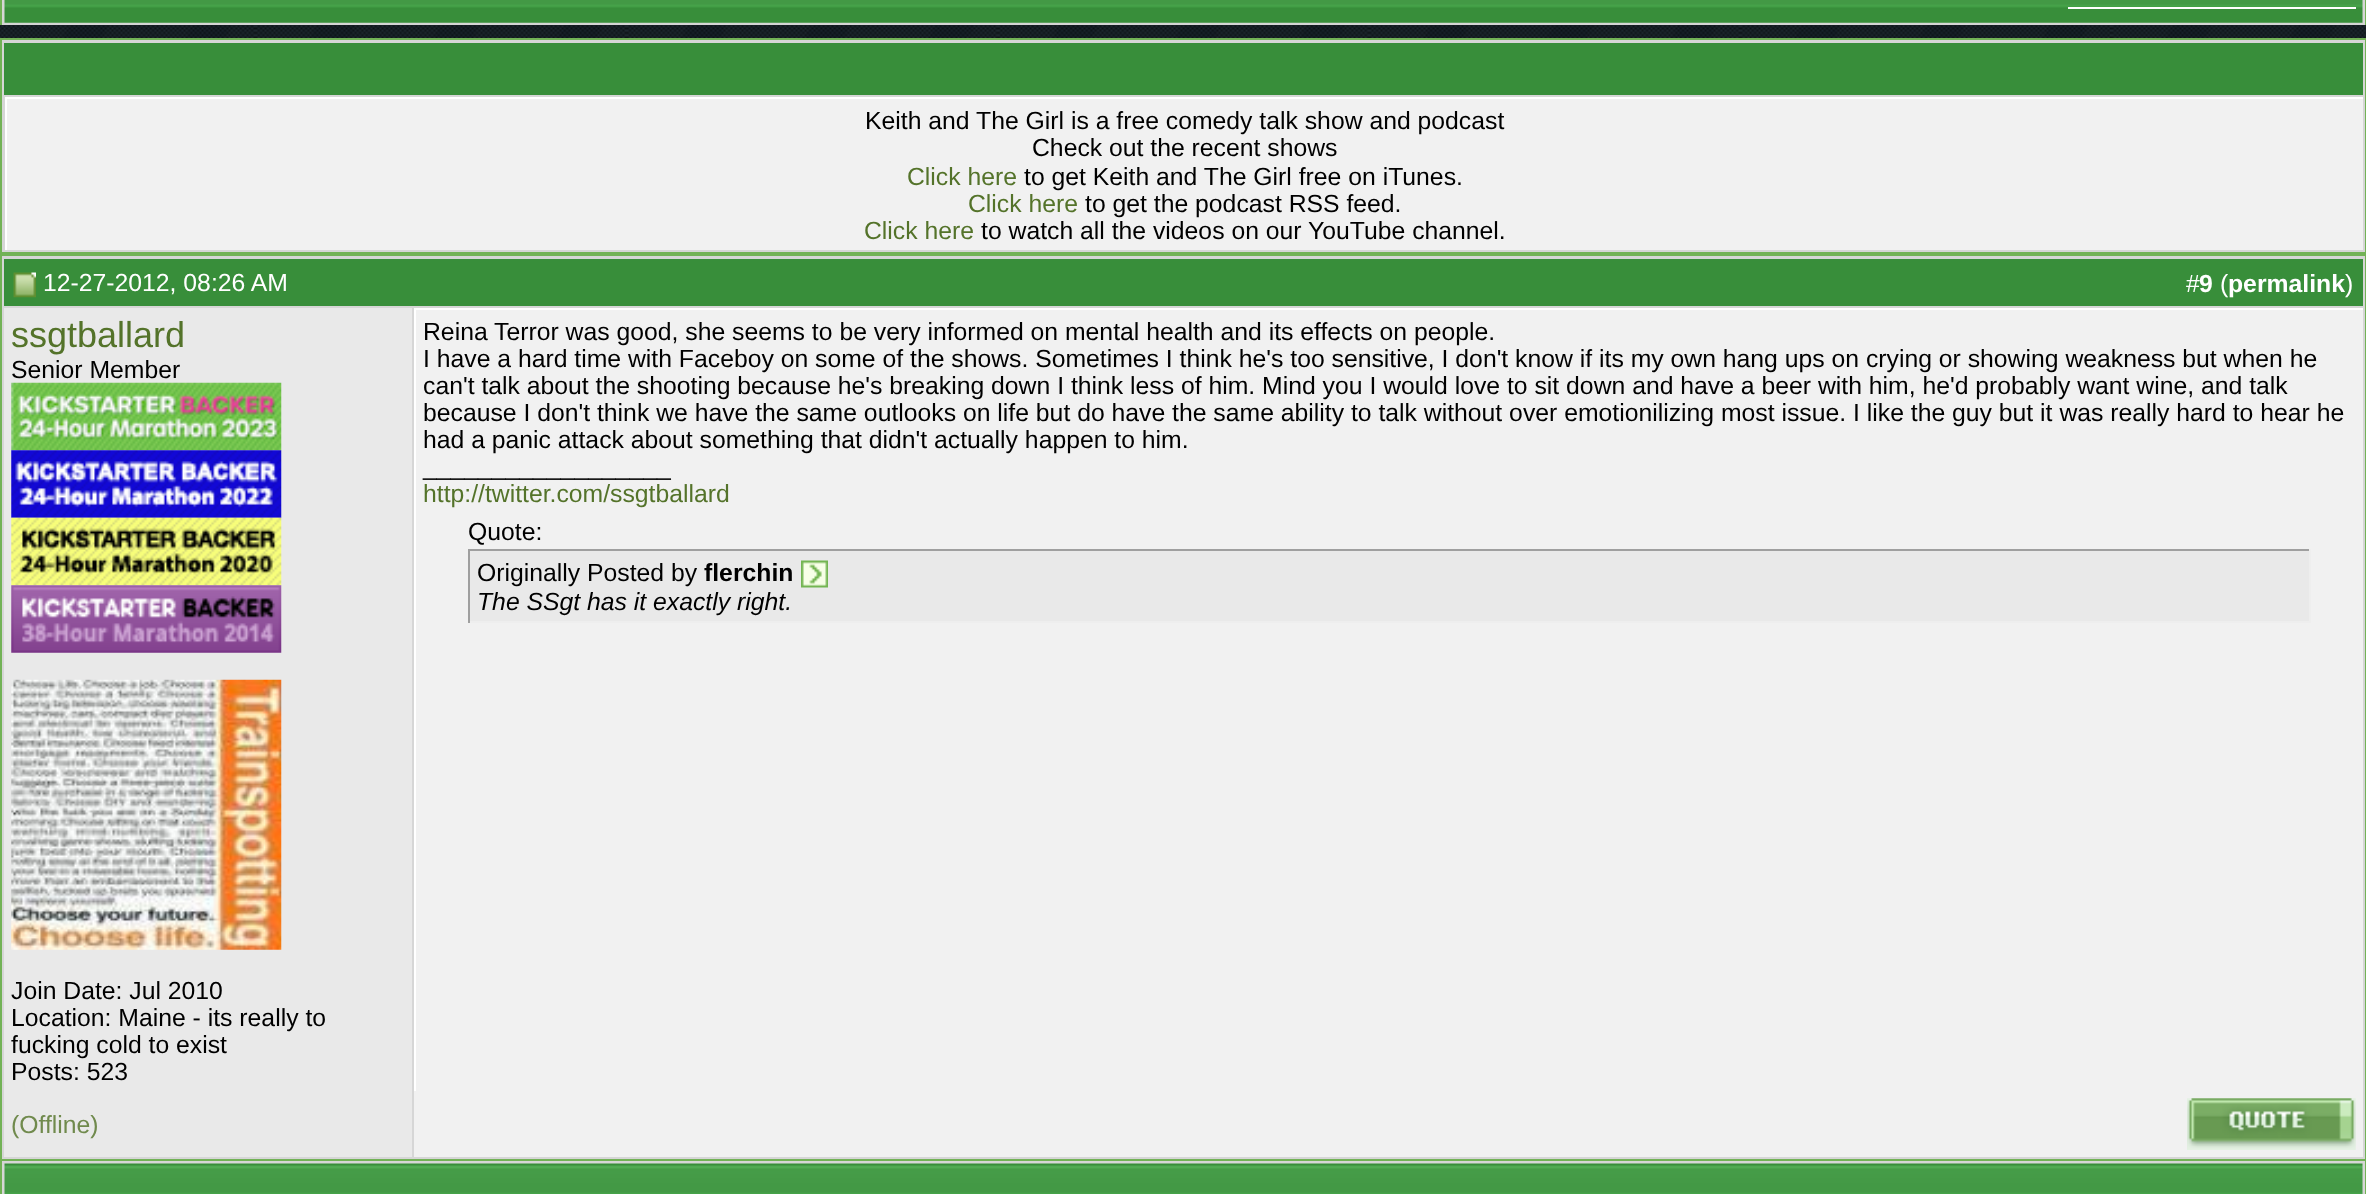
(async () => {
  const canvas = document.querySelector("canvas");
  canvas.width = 2366;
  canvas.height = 1194;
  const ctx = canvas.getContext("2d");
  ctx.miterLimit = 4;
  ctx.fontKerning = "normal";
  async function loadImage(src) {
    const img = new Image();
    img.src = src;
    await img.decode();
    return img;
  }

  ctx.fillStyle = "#ffffff";
  ctx.fillRect(0, 0, 2366, 1194);
  ctx.drawImage(await loadImage("img/1.png"), 0, 25, 2366, 13);
  for (const [x, y, w, h, color] of [
    [2, 0, 2363, 25, "#d6d6d6"],
    [2365, 0, 1, 25, "#72b256"],
    [0, 0, 2, 25, "#72b256"],
  ]) {
    ctx.fillStyle = color;
    ctx.fillRect(x, y, w, h);
  }
  ctx.drawImage(await loadImage("img/2.png"), 4, 0, 2359, 23);
  ctx.fillStyle = "#ffffff";
  ctx.fillRect(2068, 7, 288, 2);
  ctx.fillStyle = "#d6d6d6";
  ctx.beginPath();
  ctx.rect(1, 39, 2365, 214);
  ctx.fill();
  ctx.strokeStyle = "#72b256";
  ctx.lineWidth = 2;
  ctx.stroke();
  for (const [x, y, w, h, color] of [
    [4, 43, 2359, 52, "#388e3a"],
    [7, 99, 2356, 151, "#f1f1f1"],
    [5, 97, 2358, 2, "#ffffff"],
    [5, 97, 2, 153, "#ffffff"],
    [2, 256, 2363, 3, "#d6d6d6"],
  ]) {
    ctx.fillStyle = color;
    ctx.fillRect(x, y, w, h);
  }
  ctx.strokeRect(1, 255, 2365, 905);
  for (const [x, y, w, h, color] of [
    [4, 259, 2359, 47, "#388e3a"],
    [2, 306, 412, 2, "#d6d6d6"],
    [2, 257, 2, 834, "#d6d6d6"],
  ]) {
    ctx.fillStyle = color;
    ctx.fillRect(x, y, w, h);
  }
  ctx.drawImage(await loadImage("img/3.png"), 13, 272, 23, 26);
  for (const [x, y, w, h, color] of [
    [2363, 257, 2, 902, "#d6d6d6"],
    [414, 306, 1951, 2, "#d6d6d6"],
    [4, 308, 408, 849, "#e9e9e9"],
    [412, 308, 2, 851, "#d6d6d6"],
  ]) {
    ctx.fillStyle = color;
    ctx.fillRect(x, y, w, h);
  }
  ctx.drawImage(await loadImage("img/4.png"), 11, 382, 271, 69);
  ctx.drawImage(await loadImage("img/5.png"), 11, 450, 271, 68);
  ctx.drawImage(await loadImage("img/6.png"), 11, 517, 271, 69);
  ctx.drawImage(await loadImage("img/7.png"), 11, 585, 271, 68);
  ctx.drawImage(await loadImage("img/8.png"), 11, 679, 271, 271);
  for (const [x, y, w, h, color] of [
    [416, 310, 1947, 781, "#f1f1f1"],
    [470, 551, 1839, 70, "#e9e9e9"],
    [468, 549, 1843, 2, "#9f9f9f"],
    [2309, 549, 2, 74, "#eeeeee"],
    [468, 621, 1843, 2, "#eeeeee"],
    [468, 549, 2, 74, "#9f9f9f"],
  ]) {
    ctx.fillStyle = color;
    ctx.fillRect(x, y, w, h);
  }
  ctx.drawImage(await loadImage("img/9.png"), 801, 560, 27, 28);
  for (const [x, y, w, h, color] of [
    [2, 1157, 2363, 2, "#d6d6d6"],
    [2, 1091, 2, 68, "#d6d6d6"],
    [414, 1091, 1949, 66, "#f1f1f1"],
  ]) {
    ctx.fillStyle = color;
    ctx.fillRect(x, y, w, h);
  }
  ctx.drawImage(await loadImage("img/10.png"), 2187, 1098, 169, 52);
  for (const [x, y, w, h, color] of [
    [2, 1161, 2363, 33, "#d6d6d6"],
    [2365, 1161, 1, 33, "#72b256"],
    [0, 1161, 2, 33, "#72b256"],
  ]) {
    ctx.fillStyle = color;
    ctx.fillRect(x, y, w, h);
  }
  ctx.drawImage(await loadImage("img/11.png"), 4, 1163, 2359, 31);
  ctx.font = "24.75px Liberation Sans";
  ctx.fillStyle = "#000000";
  ctx.fillText("Keith and The Girl is a free comedy talk show and podcast", 865, 129);
  ctx.fillText("Check out the recent shows", 1032, 156);
  ctx.fillStyle = "#54732a";
  ctx.fillText("Click here", 907, 185);
  ctx.fillStyle = "#000000";
  ctx.fillText("to get Keith and The Girl free on iTunes.", 1024, 185);
  ctx.fillStyle = "#54732a";
  ctx.fillText("Click here", 968, 212);
  ctx.fillStyle = "#000000";
  ctx.fillText("to get the podcast RSS feed.", 1085, 212);
  ctx.fillStyle = "#54732a";
  ctx.fillText("Click here", 864, 239);
  ctx.fillStyle = "#000000";
  ctx.fillText("to watch all the videos on our YouTube channel.", 981, 239);
  ctx.fillStyle = "#ffffff";
  ctx.fillText("12-27-2012, 08:26 AM", 43, 291);
  ctx.fillText("#", 2186, 292);
  ctx.font = "bold 24.75px Liberation Sans";
  ctx.fillText("9", 2199, 292);
  ctx.font = "24.75px Liberation Sans";
  ctx.fillText("(", 2220, 292);
  ctx.font = "bold 24.75px Liberation Sans";
  ctx.fillText("permalink", 2228, 292);
  ctx.font = "24.75px Liberation Sans";
  ctx.fillText(")", 2345, 292);
  ctx.font = "36px Liberation Sans";
  ctx.fillStyle = "#54732a";
  ctx.fillText("ssgtballard", 11, 347);
  ctx.font = "24.75px Liberation Sans";
  ctx.fillStyle = "#000000";
  for (const [text, x, y] of [
    ["Senior Member", 11, 378],
    ["Join Date: Jul 2010", 11, 999],
    ["Location: Maine - its really to", 11, 1026],
    ["fucking cold to exist", 11, 1053],
    ["Posts: 523", 11, 1080],
    ["Reina Terror was good, she seems to be very informed on mental health and its effects on people.", 423, 340],
    ["I have a hard time with Faceboy on some of the shows. Sometimes I think he's too sensitive, I don't know if its my own hang ups on crying or showing weakness but when he", 423, 367],
    ["can't talk about the shooting because he's breaking down I think less of him. Mind you I would love to sit down and have a beer with him, he'd probably want wine, and talk", 423, 394],
    ["because I don't think we have the same outlooks on life but do have the same ability to talk without over emotionilizing most issue. I like the guy but it was really hard to hear he", 423, 421],
    ["had a panic attack about something that didn't actually happen to him.", 423, 448],
    ["__________________", 423, 475],
  ]) {
    ctx.fillText(text, x, y);
  }
  ctx.fillStyle = "#54732a";
  ctx.fillText("http://twitter.com/ssgtballard", 423, 502);
  ctx.fillStyle = "#000000";
  ctx.fillText("Quote:", 468, 540);
  ctx.fillText("Originally Posted by", 477, 581);
  ctx.font = "bold 24.75px Liberation Sans";
  ctx.fillText("flerchin", 704, 581);
  ctx.font = "italic 24.75px Liberation Sans";
  ctx.fillText("The SSgt has it exactly right.", 477, 610);
  ctx.font = "24.75px Liberation Sans";
  ctx.fillStyle = "#708a4d";
  ctx.fillText("(Offline)", 11, 1133);
})();
